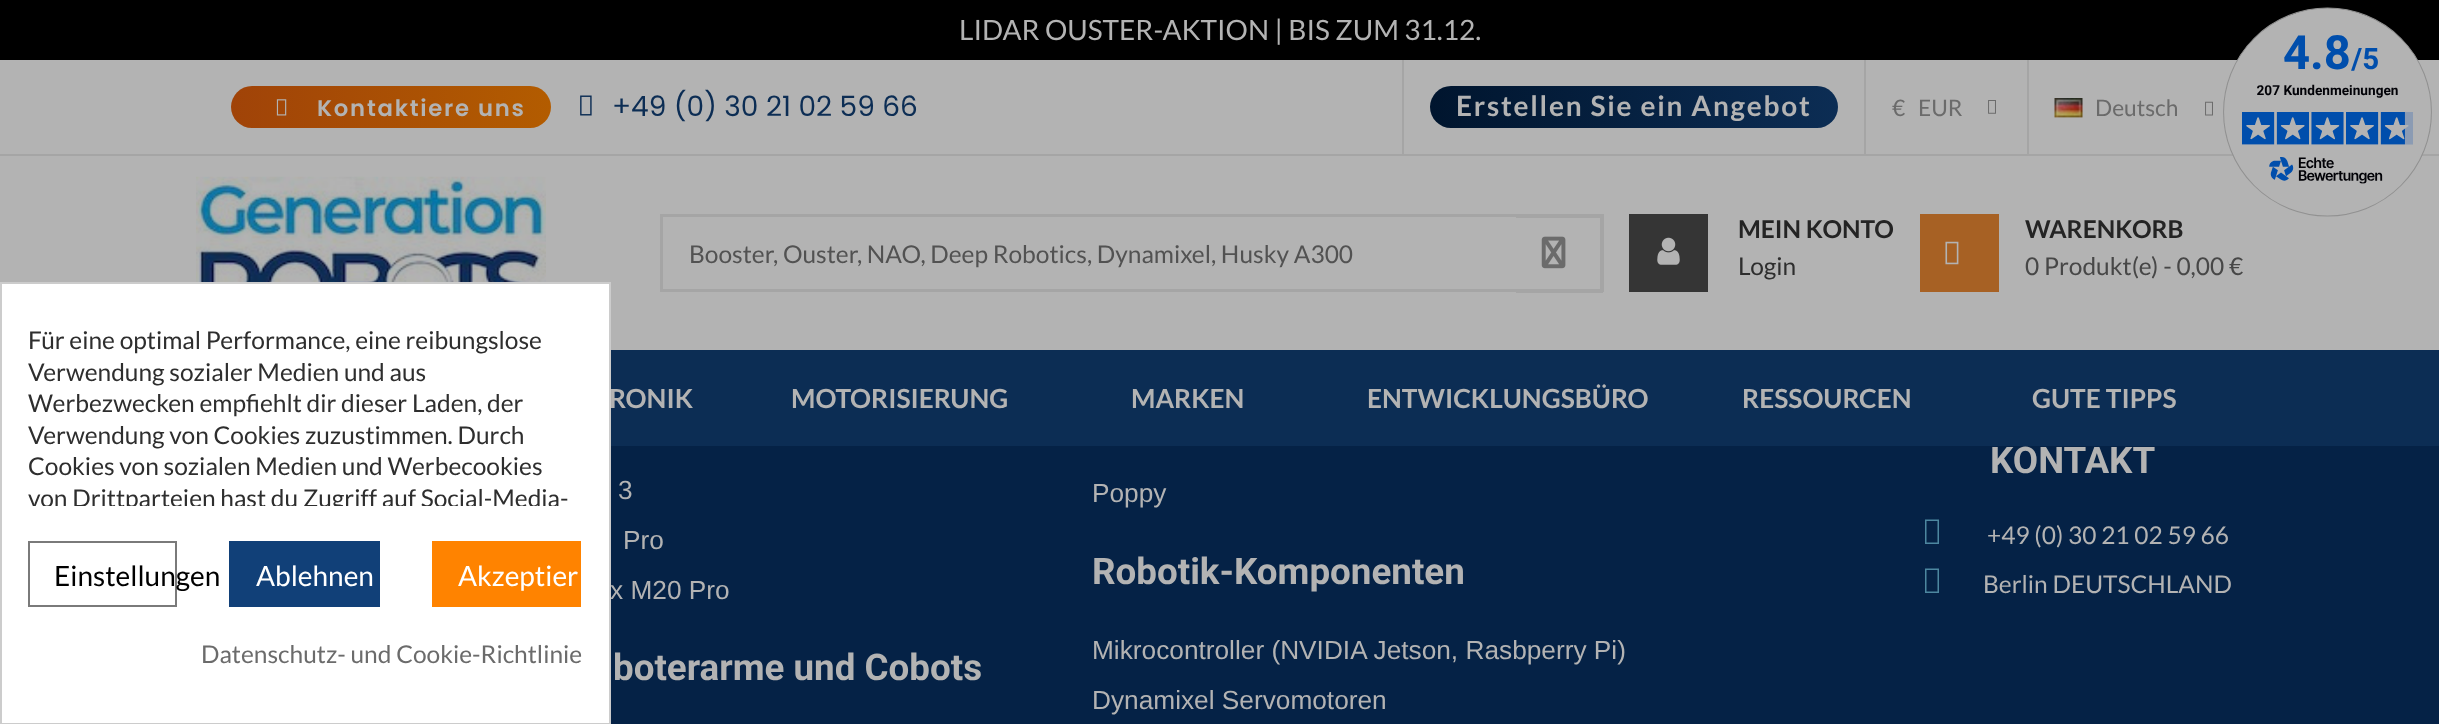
(async () => {
  const canvas = document.querySelector("canvas");
  canvas.width = 2439;
  canvas.height = 724;
  const ctx = canvas.getContext("2d");
  ctx.miterLimit = 4;
  ctx.fontKerning = "normal";
  async function loadImage(src) {
    const img = new Image();
    img.src = src;
    await img.decode();
    return img;
  }
  let gradient, path;

  ctx.fillStyle = "#052246";
  ctx.fillRect(0, 0, 2439, 724);
  for (const [x, y, w, h, color] of [
    [0, 60, 2439, 290, "#b3b3b3"],
    [0, 0, 2439, 60, "#000000"],
    [0, 154, 2439, 2, "#a5a5a5"],
  ]) {
    ctx.fillStyle = color;
    ctx.fillRect(x, y, w, h);
  }
  gradient = ctx.createLinearGradient(231, 107, 551, 107);
  gradient.addColorStop(0, "#a04308");
  gradient.addColorStop(1, "#b35c00");
  ctx.fillStyle = gradient;
  ctx.beginPath();
  ctx.roundRect(231, 86, 320, 42, 21);
  ctx.fill();
  ctx.drawImage(await loadImage("img/1.png"), 276, 99, 11, 17);
  ctx.drawImage(await loadImage("img/2.png"), 580, 95, 12, 21);
  ctx.fillStyle = "#a5a5a5";
  ctx.fillRect(1402, 60, 2, 94);
  gradient = ctx.createLinearGradient(1430, 107, 1838, 107);
  gradient.addColorStop(0, "#00152e");
  gradient.addColorStop(1, "#0c2d54");
  ctx.fillStyle = gradient;
  ctx.beginPath();
  ctx.roundRect(1430, 86, 408, 42, 21);
  ctx.fill();
  ctx.fillStyle = "#a5a5a5";
  ctx.fillRect(1864, 60, 2, 94);
  ctx.drawImage(await loadImage("img/3.png"), 1988, 100, 8, 14);
  ctx.fillRect(2027, 60, 2, 94);
  ctx.drawImage(await loadImage("img/4.png"), 2054, 98, 29, 20);
  ctx.drawImage(await loadImage("img/5.png"), 2205, 101, 8, 15);
  ctx.drawImage(await loadImage("img/6.png"), 196, 176, 350, 106);
  ctx.strokeStyle = "#a5a5a5";
  ctx.lineWidth = 4;
  ctx.strokeRect(662, 216, 871, 74);
  for (const [x, y, w, h, color] of [
    [663, 217, 853, 72, "#b3b3b3"],
    [1516, 218, 19, 71, "#b3b3b3"],
    [1535, 214, 68, 4, "#a5a5a5"],
    [1600, 214, 4, 78, "#a5a5a5"],
    [1516, 289, 87, 4, "#a5a5a5"],
  ]) {
    ctx.fillStyle = color;
    ctx.fillRect(x, y, w, h);
  }
  ctx.drawImage(await loadImage("img/7.png"), 1541, 236, 25, 33);
  ctx.fillStyle = "#353535";
  ctx.fillRect(1629, 214, 79, 78);
  ctx.drawImage(await loadImage("img/8.png"), 1657, 237, 23, 28);
  ctx.fillStyle = "#a76124";
  ctx.fillRect(1920, 214, 79, 78);
  ctx.drawImage(await loadImage("img/9.png"), 1945, 241, 14, 24);
  ctx.fillStyle = "#0c2d54";
  ctx.fillRect(611, 350, 1828, 96);
  ctx.fillStyle = "#4d87a0";
  path = new Path2D("M1925 544V519.5H1939V544ZM1926.5 542.5H1937.5V521H1926.5Z");
  ctx.fill(path);
  path = new Path2D("M1925 593V568.5H1939V593ZM1926.5 591.5H1937.5V570H1926.5Z");
  ctx.fill(path);
  ctx.drawImage(await loadImage("img/10.png"), 2223, 7, 209, 210);
  ctx.font = "28px Lato";
  ctx.fillStyle = "#b3b3b3";
  ctx.fillText("LIDAR OUSTER-AKTION | BIS ZUM 31.12.", 959, 40);
  ctx.letterSpacing = "1.75px";
  ctx.font = "600 22.75px Poppins";
  ctx.fillText("Kontaktiere uns", 317, 116);
  ctx.letterSpacing = "0px";
  ctx.font = "28px Poppins";
  ctx.fillStyle = "#0c2d54";
  ctx.fillText("+49 (0) 30 21 02 59 66", 612, 116);
  ctx.letterSpacing = "1.75px";
  ctx.font = "bold 28px Lato";
  ctx.fillStyle = "#b3b3b3";
  ctx.fillText("Erstellen Sie ein Angebot", 1456, 116);
  ctx.letterSpacing = "0px";
  ctx.font = "22.75px Lato";
  ctx.fillStyle = "#6b6b6b";
  for (const [text, x, y] of [
    ["€", 1892, 116],
    ["EUR", 1918, 116],
    ["Deutsch", 2095, 116],
  ]) {
    ctx.fillText(text, x, y);
  }
  ctx.font = "24.5px Lato";
  ctx.fillStyle = "#525252";
  ctx.fillText("Booster, Ouster, NAO, Deep Robotics, Dynamixel, Husky A300", 689, 263);
  ctx.font = "bold 24.5px Lato";
  ctx.fillStyle = "#242424";
  ctx.fillText("MEIN KONTO", 1738, 238);
  ctx.font = "24.5px Lato";
  ctx.fillStyle = "#2e2e2e";
  ctx.fillText("Login", 1738, 275);
  ctx.font = "bold 24.5px Lato";
  ctx.fillStyle = "#242424";
  ctx.fillText("WARENKORB", 2025, 238);
  ctx.font = "24.5px Lato";
  ctx.fillStyle = "#474747";
  ctx.fillText("0 Produkt(e) - 0,00 €", 2025, 275);
  ctx.font = "bold 26.25px Lato";
  ctx.fillStyle = "#b3b3b3";
  for (const [text, x, y] of [
    ["RONIK", 609, 408],
    ["MOTORISIERUNG", 791, 408],
    ["MARKEN", 1131, 408],
    ["ENTWICKLUNGSBÜRO", 1367, 408],
    ["RESSOURCEN", 1742, 408],
    ["GUTE TIPPS", 2032, 408],
  ]) {
    ctx.fillText(text, x, y);
  }
  ctx.font = "26.25px Liberation Sans";
  for (const [text, x, y] of [
    ["3", 618, 499],
    ["Pro", 623, 549],
    ["x M20 Pro", 610, 599],
  ]) {
    ctx.fillText(text, x, y);
  }
  ctx.fillStyle = "#ffffff";
  ctx.beginPath();
  ctx.rect(1, 283, 609, 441);
  ctx.fill();
  ctx.strokeStyle = "#cccccc";
  ctx.lineWidth = 2;
  ctx.stroke();
  ctx.font = "24.5px Lato";
  ctx.fillStyle = "#6b6b6b";
  ctx.fillText("Datenschutz- und Cookie-Richtlinie", 201, 663);
  ctx.fillStyle = "#ff8300";
  ctx.fillRect(432, 541, 149, 66);
  ctx.font = "28px Lato";
  ctx.fillStyle = "#ffffff";
  ctx.fillText("Akzeptier", 458, 586);
  ctx.fillStyle = "#114078";
  ctx.fillRect(229, 541, 151, 66);
  ctx.fillStyle = "#ffffff";
  ctx.fillText("Ablehnen", 256, 586);
  ctx.strokeStyle = "#7a7a7a";
  ctx.strokeRect(29, 542, 147, 64);
  ctx.fillStyle = "#000000";
  ctx.fillText("Einstellungen", 54, 586);
  ctx.save();
  ctx.beginPath();
  ctx.rect(28, 326, 555, 180);
  ctx.clip();
  ctx.font = "24.5px Lato";
  ctx.fillStyle = "#2e2e2e";
  ctx.fillText("von Drittparteien hast du Zugriff auf Social-Media-", 28, 507);
  ctx.restore();
  ctx.font = "24.5px Lato";
  ctx.fillStyle = "#2e2e2e";
  for (const [text, x, y] of [
    ["Cookies von sozialen Medien und Werbecookies", 28, 475],
    ["Verwendung von Cookies zuzustimmen. Durch", 28, 444],
    ["Werbezwecken empfiehlt dir dieser Laden, der", 28, 412],
    ["Verwendung sozialer Medien und aus", 28, 381],
    ["Für eine optimal Performance, eine reibungslose", 28, 349],
  ]) {
    ctx.fillText(text, x, y);
  }
  ctx.font = "bold 36.75px Roboto";
  ctx.fillStyle = "#b3b3b3";
  ctx.fillText("boterarme und Cobots", 613, 680);
  ctx.font = "26.25px Liberation Sans";
  ctx.fillText("Poppy", 1092, 502);
  ctx.font = "bold 36.75px Roboto";
  ctx.fillText("Robotik-Komponenten", 1092, 584);
  ctx.font = "26.25px Liberation Sans";
  ctx.fillText("Mikrocontroller (NVIDIA Jetson, Rasbperry Pi)", 1092, 659);
  ctx.fillText("Dynamixel Servomotoren", 1092, 709);
  ctx.font = "bold 36.75px Roboto";
  ctx.fillText("KONTAKT", 1990, 473);
  ctx.font = "24.5px Lato";
  ctx.fillText("+49 (0) 30 21 02 59 66", 1987, 544);
  ctx.fillText("Berlin DEUTSCHLAND", 1983, 593);
})();
